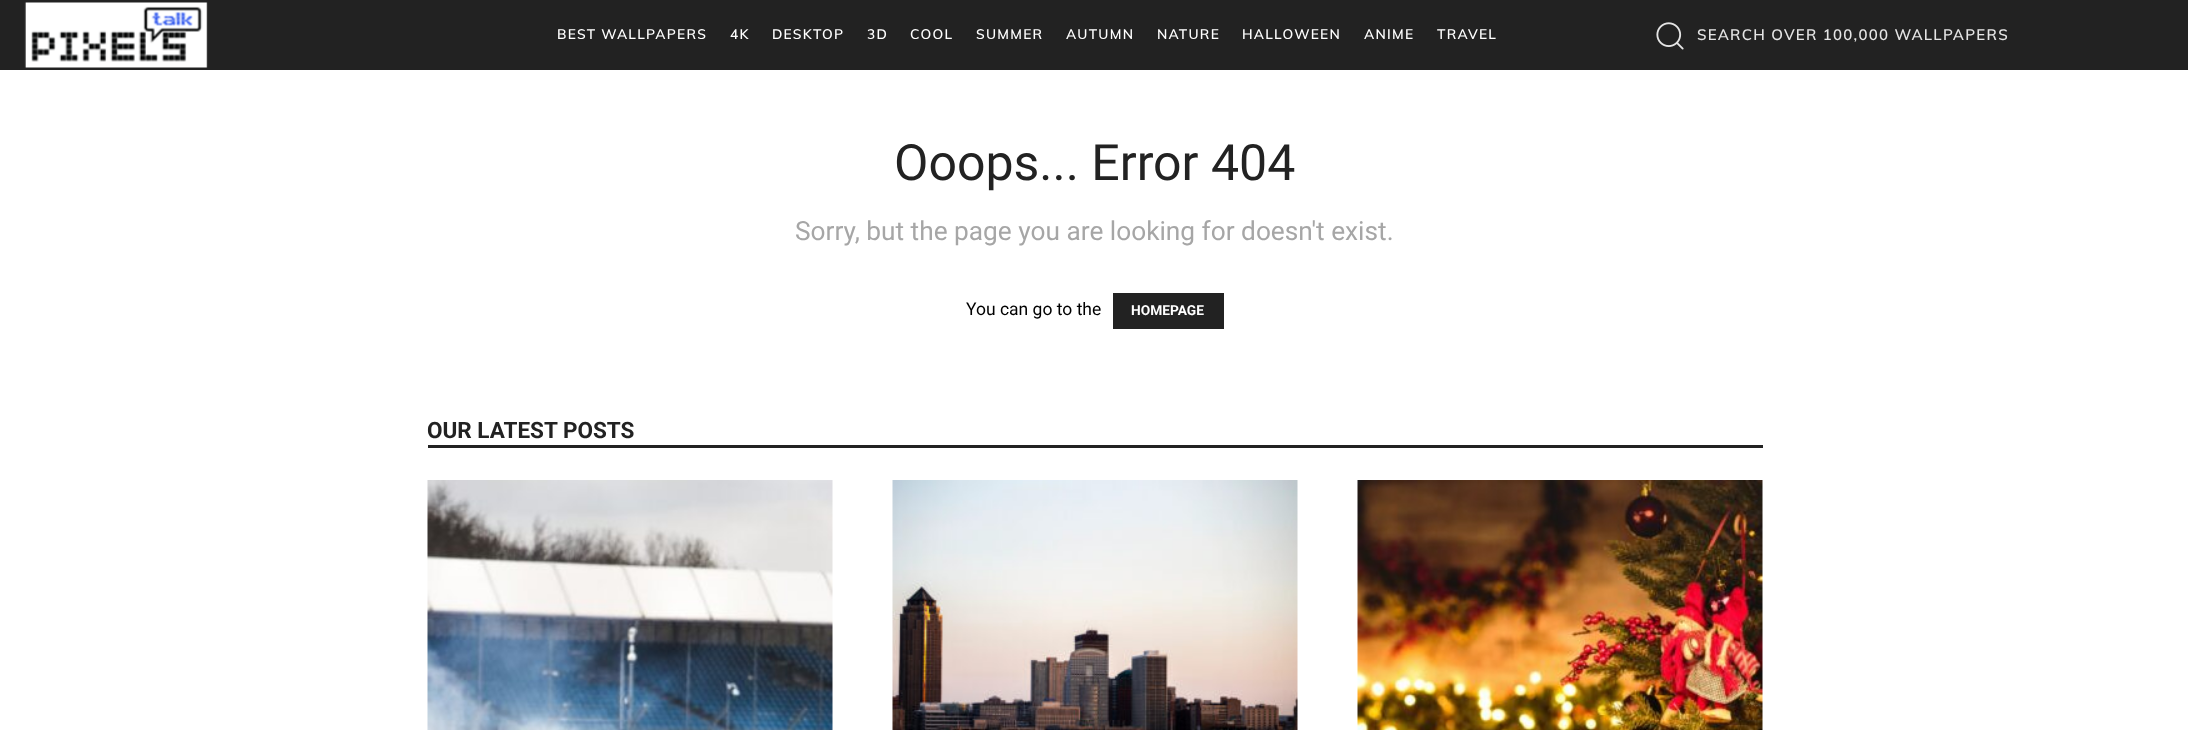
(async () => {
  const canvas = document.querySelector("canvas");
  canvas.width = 2188;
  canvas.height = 730;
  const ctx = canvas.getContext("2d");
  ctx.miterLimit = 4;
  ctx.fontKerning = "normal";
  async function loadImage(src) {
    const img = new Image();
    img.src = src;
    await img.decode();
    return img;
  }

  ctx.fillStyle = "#ffffff";
  ctx.fillRect(0, 0, 2188, 730);
  ctx.fillStyle = "#222222";
  ctx.fillRect(0, 0, 2188, 70);
  ctx.drawImage(await loadImage("img/1.png"), 24, 2, 184, 66);
  ctx.drawImage(await loadImage("img/2.png"), 1656, 22, 28, 28);
  ctx.fillRect(1113, 293, 111, 36);
  ctx.fillRect(428, 445, 1335, 3);
  ctx.drawImage(await loadImage("img/3.png"), 427, 480, 406, 250);
  ctx.drawImage(await loadImage("img/4.png"), 892, 480, 406, 250);
  ctx.drawImage(await loadImage("img/5.png"), 1357, 480, 406, 250);
  ctx.letterSpacing = "1.25px";
  ctx.font = "600 13.75px Muli";
  ctx.fillStyle = "#ffffff";
  for (const [text, x, y] of [
    ["BEST WALLPAPERS", 557, 39],
    ["4K", 730, 39],
    ["DESKTOP", 772, 39],
    ["3D", 867, 39],
    ["COOL", 910, 39],
    ["SUMMER", 976, 39],
    ["AUTUMN", 1066, 39],
    ["NATURE", 1157, 39],
    ["HALLOWEEN", 1242, 39],
    ["ANIME", 1364, 39],
    ["TRAVEL", 1437, 39],
  ]) {
    ctx.fillText(text, x, y);
  }
  ctx.font = "600 15px Muli";
  ctx.fillStyle = "#e5e5e5";
  ctx.fillText("SEARCH OVER 100,000 WALLPAPERS", 1697, 40);
  ctx.letterSpacing = "0px";
  ctx.font = "50px Roboto";
  ctx.fillStyle = "#222222";
  ctx.fillText("Ooops... Error 404", 894, 180);
  ctx.font = "26.25px Roboto";
  ctx.fillStyle = "#a6a6a6";
  ctx.fillText("Sorry, but the page you are looking for doesn't exist.", 795, 240);
  ctx.font = "17.5px Roboto";
  ctx.fillStyle = "#000000";
  ctx.fillText("You can go to the", 966, 315);
  ctx.font = "bold 13.75px Roboto";
  ctx.fillStyle = "#ffffff";
  ctx.fillText("HOMEPAGE", 1131, 315);
  ctx.font = "bold 22.5px Roboto";
  ctx.fillStyle = "#222222";
  ctx.fillText("OUR LATEST POSTS", 427, 438);
})();
